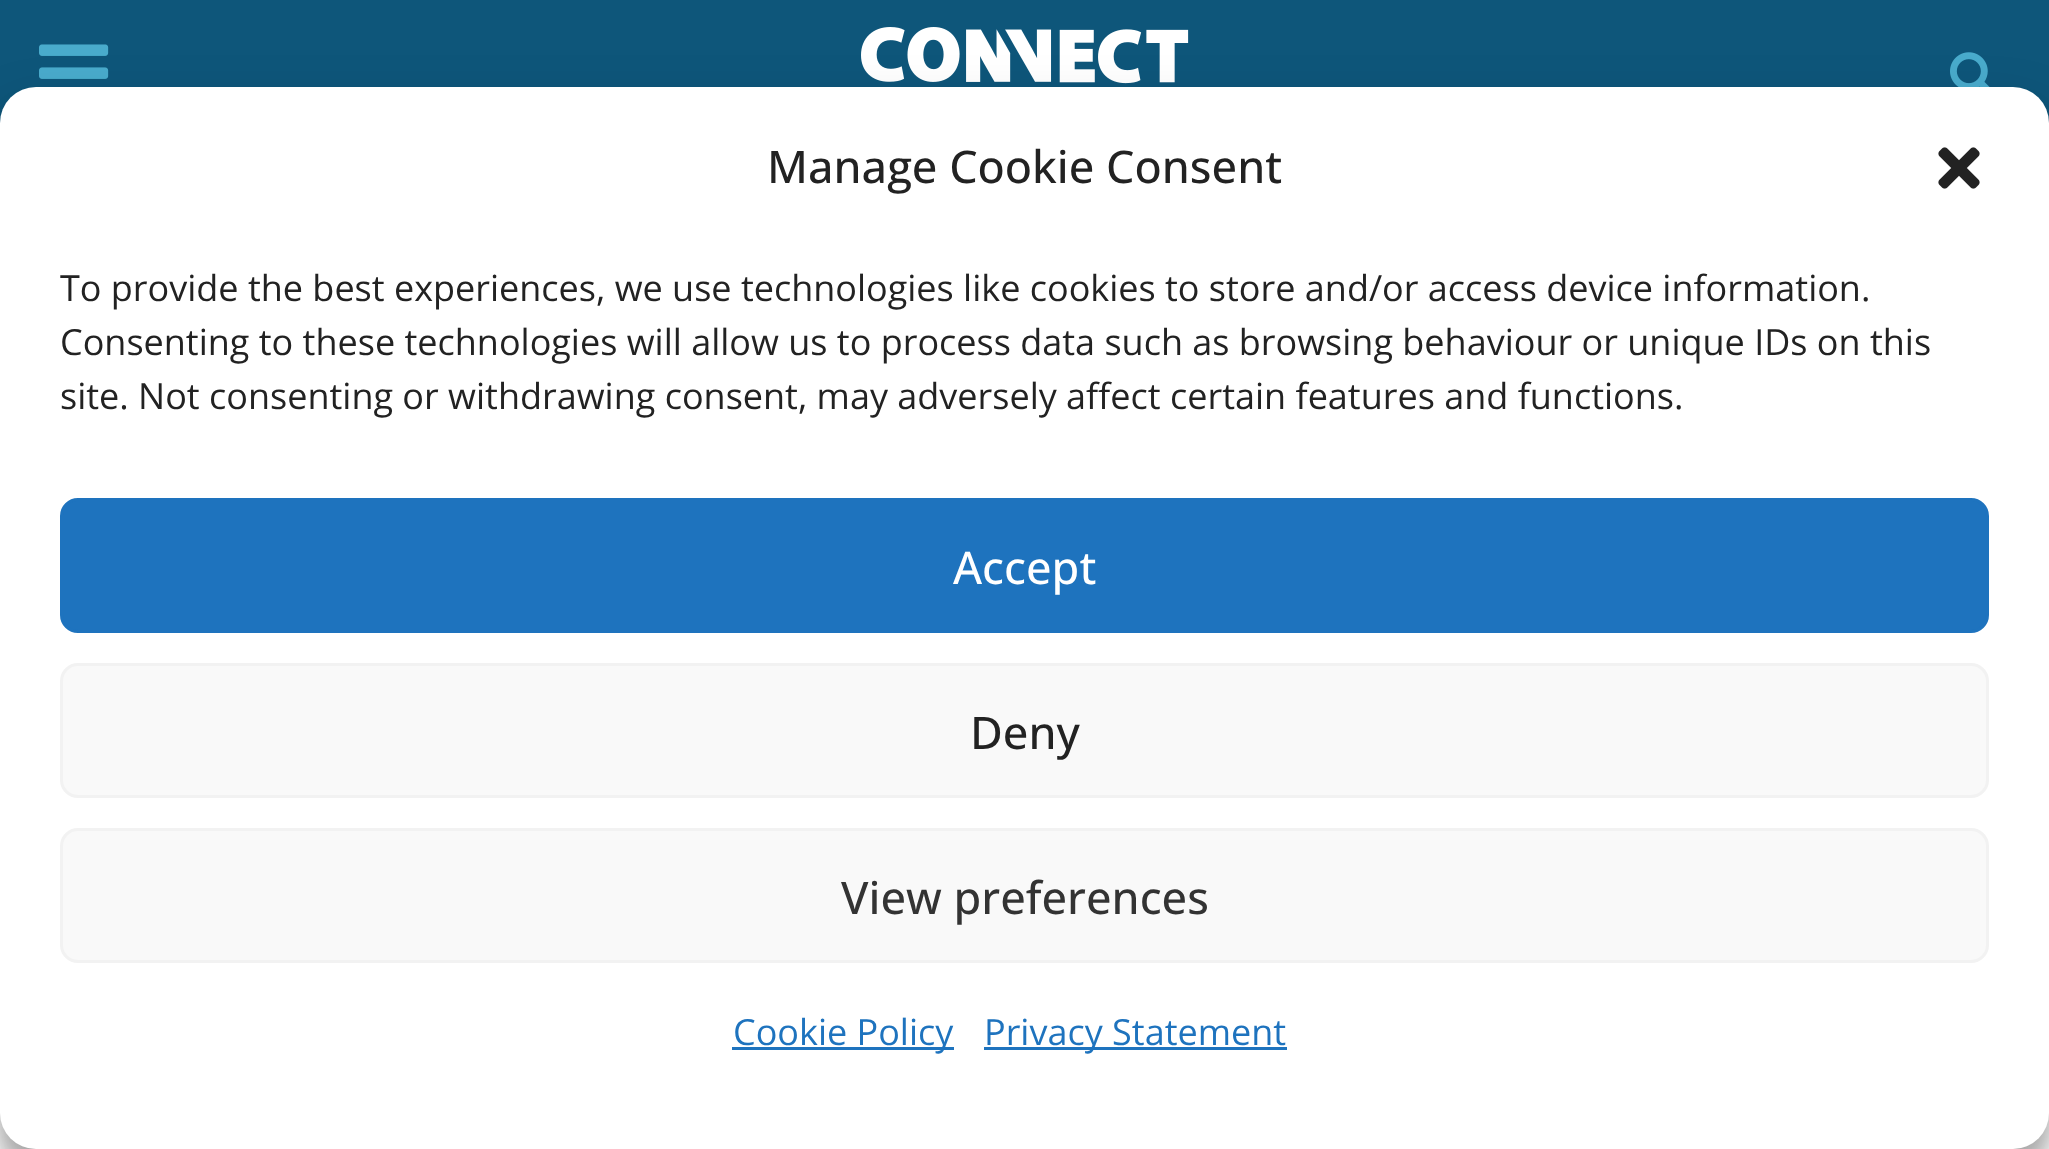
(async () => {
  const canvas = document.querySelector("canvas");
  canvas.width = 2049;
  canvas.height = 1149;
  const ctx = canvas.getContext("2d");
  ctx.miterLimit = 4;
  ctx.fontKerning = "normal";
  async function loadImage(src) {
    const img = new Image();
    img.src = src;
    await img.decode();
    return img;
  }

  ctx.fillStyle = "#ffffff";
  ctx.fillRect(0, 0, 2049, 1149);
  ctx.fillStyle = "#0e567a";
  ctx.fillRect(0, 0, 2049, 123);
  ctx.drawImage(await loadImage("img/1.png"), 39, 44, 70, 35);
  ctx.drawImage(await loadImage("img/2.png"), 861, 27, 328, 57);
  ctx.drawImage(await loadImage("img/3.png"), 1950, 52, 40, 35);
  ctx.fillStyle = "rgba(0, 0, 0, 0.23)";
  ctx.filter = "blur(9px)";
  ctx.beginPath();
  ctx.roundRect(0, 105, 2049, 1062, 36);
  ctx.fill();
  ctx.filter = "none";
  ctx.fillStyle = "rgba(0, 0, 0, 0.19)";
  ctx.filter = "blur(30px)";
  ctx.beginPath();
  ctx.roundRect(0, 117, 2049, 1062, 36);
  ctx.fill();
  ctx.filter = "none";
  ctx.fillStyle = "#ffffff";
  ctx.beginPath();
  ctx.roundRect(0, 87, 2049, 1062, 36);
  ctx.fill();
  ctx.drawImage(await loadImage("img/4.png"), 1938, 147, 42, 42);
  ctx.fillStyle = "#1e73be";
  ctx.beginPath();
  ctx.roundRect(61.5, 499.5, 1926, 132, 16.5);
  ctx.fill();
  ctx.strokeStyle = "#1e73be";
  ctx.lineWidth = 3;
  ctx.stroke();
  ctx.fillStyle = "#f9f9f9";
  ctx.beginPath();
  ctx.roundRect(61.5, 664.5, 1926, 132, 16.5);
  ctx.fill();
  ctx.strokeStyle = "#f2f2f2";
  ctx.stroke();
  ctx.beginPath();
  ctx.roundRect(61.5, 829.5, 1926, 132, 16.5);
  ctx.fill();
  ctx.stroke();
  ctx.fillStyle = "#1e73be";
  ctx.fillRect(732, 1047, 222, 3);
  ctx.fillRect(984, 1047, 303, 3);
  ctx.font = "500 45px Open Sans";
  ctx.fillStyle = "#222222";
  ctx.fillText("Manage Cookie Consent", 767, 183);
  ctx.font = "36px Open Sans";
  for (const [text, x, y] of [
    ["To provide the best experiences, we use technologies like cookies to store and/or access device information.", 60, 301],
    ["Consenting to these technologies will allow us to process data such as browsing behaviour or unique IDs on this", 60, 355],
    ["site. Not consenting or withdrawing consent, may adversely affect certain features and functions.", 60, 409],
  ]) {
    ctx.fillText(text, x, y);
  }
  ctx.font = "500 45px Open Sans";
  ctx.fillStyle = "#ffffff";
  ctx.fillText("Accept", 953, 584);
  ctx.fillStyle = "#222222";
  ctx.fillText("Deny", 970, 749);
  ctx.fillStyle = "#333333";
  ctx.fillText("View preferences", 841, 914);
  ctx.font = "36px Open Sans";
  ctx.fillStyle = "#1e73be";
  ctx.fillText("Cookie Policy", 733, 1045);
  ctx.fillText("Privacy Statement", 984, 1045);
})();
